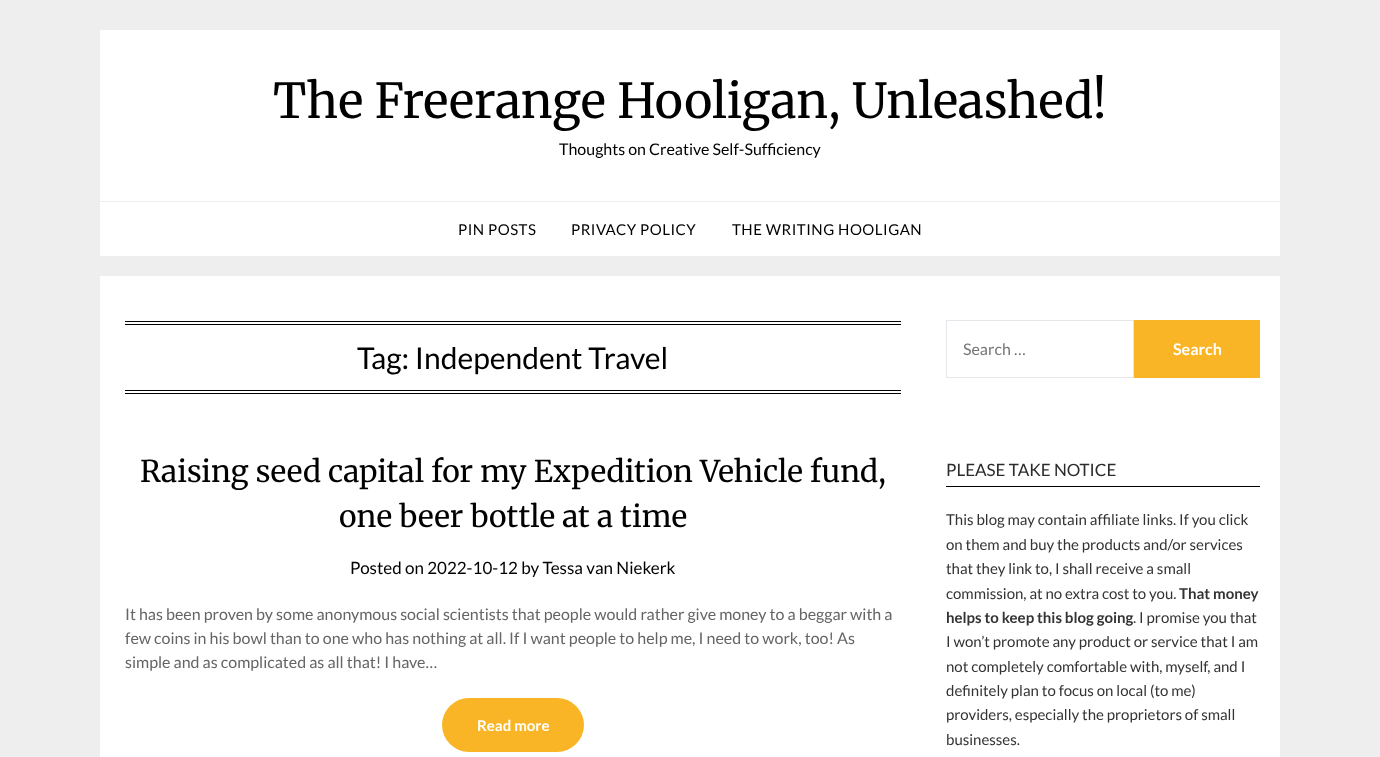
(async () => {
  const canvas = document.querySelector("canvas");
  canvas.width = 1380;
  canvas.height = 757;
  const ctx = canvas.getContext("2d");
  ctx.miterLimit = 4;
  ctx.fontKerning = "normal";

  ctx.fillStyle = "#eeeeee";
  ctx.fillRect(0, 0, 1380, 757);
  for (const [x, y, w, h, color] of [
    [100, 30, 1180, 171, "#ffffff"],
    [100, 202, 1180, 54, "#ffffff"],
    [100, 276, 1180, 481, "#ffffff"],
    [125, 321, 776, 1, "#000000"],
    [125, 324, 776, 1, "#000000"],
    [125, 390, 776, 1, "#000000"],
    [125, 393, 776, 1, "#000000"],
  ]) {
    ctx.fillStyle = color;
    ctx.fillRect(x, y, w, h);
  }
  ctx.fillStyle = "#fab526";
  ctx.beginPath();
  ctx.roundRect(442, 698, 142, 54, 27);
  ctx.fill();
  ctx.strokeStyle = "#e5e6e9";
  ctx.strokeRect(946.5, 320.5, 187, 57);
  ctx.fillRect(1134, 320, 126, 58);
  ctx.fillStyle = "#000000";
  ctx.fillRect(946, 486, 314, 1);
  ctx.font = "48px Merriweather";
  ctx.fillText("The Freerange Hooligan, Unleashed!", 273, 118);
  ctx.font = "16px Lato";
  ctx.fillText("Thoughts on Creative Self-Sufficiency", 559, 155);
  ctx.letterSpacing = "0.5px";
  ctx.font = "15px Lato";
  for (const [text, x, y] of [
    ["PIN POSTS", 458, 235],
    ["PRIVACY POLICY", 571, 235],
    ["THE WRITING HOOLIGAN", 732, 235],
  ]) {
    ctx.fillText(text, x, y);
  }
  ctx.letterSpacing = "0px";
  ctx.font = "30px Lato";
  ctx.fillText("Tag: Independent Travel", 357, 369);
  ctx.font = "30px Merriweather";
  ctx.fillText("Raising seed capital for my Expedition Vehicle fund,", 140, 482);
  ctx.fillText("one beer bottle at a time", 339, 527);
  ctx.font = "17px Lato";
  ctx.fillText("Posted on 2022-10-12 by Tessa van Niekerk", 350, 574);
  ctx.font = "16px Lato";
  ctx.fillStyle = "#656565";
  for (const [text, x, y] of [
    ["It has been proven by some anonymous social scientists that people would rather give money to a beggar with a", 125, 620],
    ["few coins in his bowl than to one who has nothing at all. If I want people to help me, I need to work, too! As", 125, 644],
    ["simple and as complicated as all that! I have…", 125, 668],
  ]) {
    ctx.fillText(text, x, y);
  }
  ctx.font = "bold 15px Lato";
  ctx.fillStyle = "#ffffff";
  ctx.fillText("Read more", 477, 731);
  ctx.font = "16px Lato";
  ctx.fillStyle = "#757575";
  ctx.fillText("Search …", 963, 355);
  ctx.font = "bold 16px Lato";
  ctx.fillStyle = "#ffffff";
  ctx.fillText("Search", 1173, 355);
  ctx.font = "17px Lato";
  ctx.fillStyle = "#2b2b2b";
  ctx.fillText("PLEASE TAKE NOTICE", 946, 476);
  ctx.font = "15px Lato";
  ctx.fillStyle = "#333333";
  for (const [text, x, y] of [
    ["This blog may contain affiliate links. If you click", 946, 525],
    ["on them and buy the products and/or services", 946, 550],
    ["that they link to, I shall receive a small", 946, 574],
    ["commission, at no extra cost to you.", 946, 599],
  ]) {
    ctx.fillText(text, x, y);
  }
  ctx.font = "bold 15px Lato";
  ctx.fillText("That money", 1179, 599);
  ctx.fillText("helps to keep this blog going", 946, 623);
  ctx.font = "15px Lato";
  for (const [text, x, y] of [
    [". I promise you that", 1133, 623],
    ["I won’t promote any product or service that I am", 946, 647],
    ["not completely comfortable with, myself, and I", 946, 672],
    ["definitely plan to focus on local (to me)", 946, 696],
    ["providers, especially the proprietors of small", 946, 720],
    ["businesses.", 946, 745],
  ]) {
    ctx.fillText(text, x, y);
  }
})();
